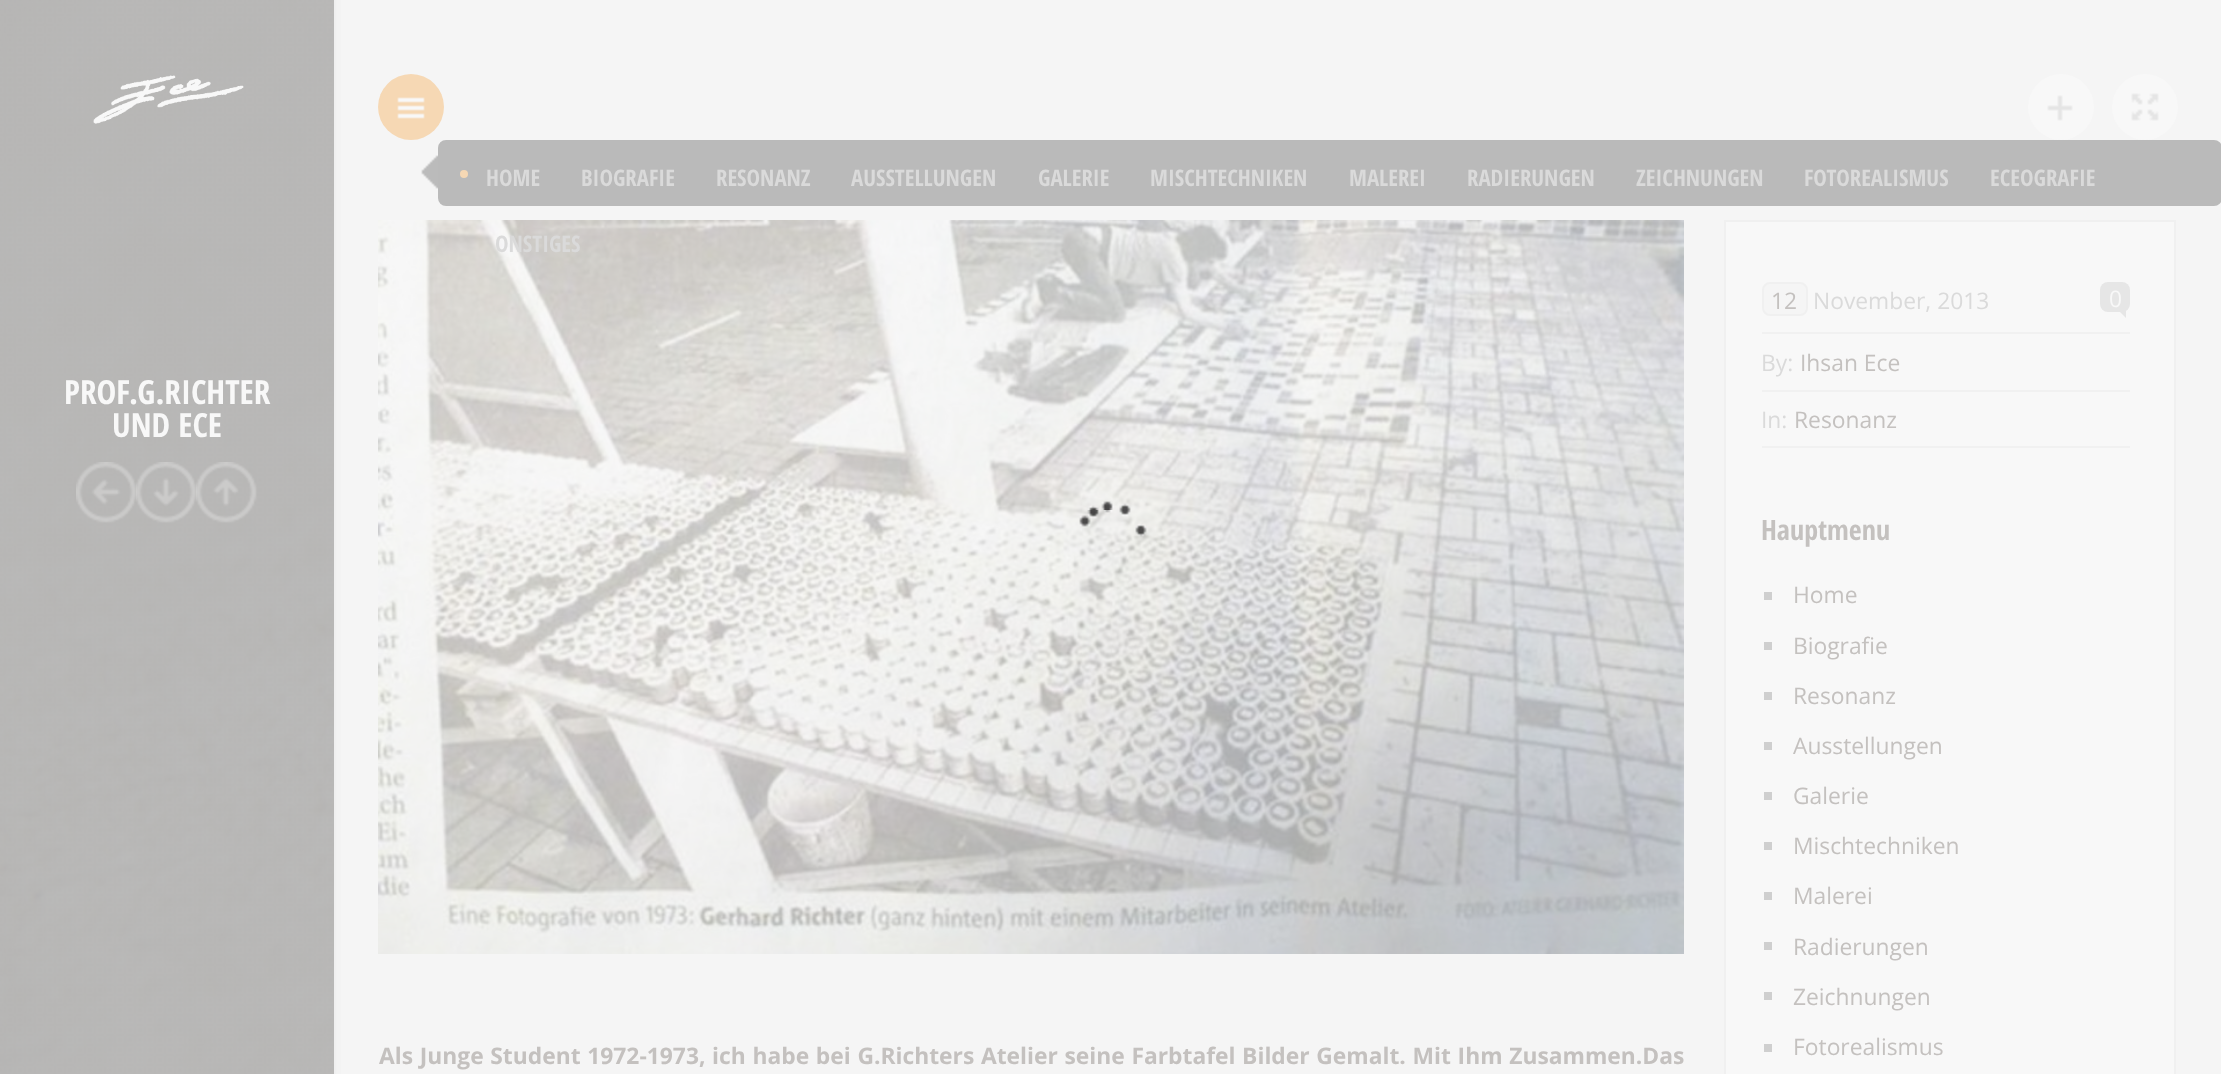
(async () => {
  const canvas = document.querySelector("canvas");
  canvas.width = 2221;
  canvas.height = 1074;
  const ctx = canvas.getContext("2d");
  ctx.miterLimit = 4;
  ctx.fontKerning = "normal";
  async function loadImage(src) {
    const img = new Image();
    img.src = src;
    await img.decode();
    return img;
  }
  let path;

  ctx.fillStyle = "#ffffff";
  ctx.fillRect(0, 0, 2221, 1074);
  ctx.drawImage(await loadImage("img/1.png"), 0, 0, 334, 1074);
  ctx.drawImage(await loadImage("img/2.png"), 0, 0, 334, 1074);
  ctx.fillStyle = "#f5f5f5";
  ctx.fillRect(334, 0, 1887, 1074);
  ctx.fillStyle = "#f8f8f8";
  ctx.beginPath();
  ctx.arc(2061, 107, 33, 0, Math.PI * 2);
  ctx.fill();
  ctx.drawImage(await loadImage("img/3.png"), 2047, 95, 26, 26);
  ctx.beginPath();
  ctx.arc(2145, 107, 33, 0, Math.PI * 2);
  ctx.fill();
  ctx.drawImage(await loadImage("img/4.png"), 2131, 93, 28, 28);
  ctx.fillStyle = "rgba(172, 172, 172, 0.8)";
  ctx.fillRect(0, 0, 334, 1074);
  ctx.drawImage(await loadImage("img/5.png"), 93, 75, 151, 49);
  ctx.fillStyle = "#f6d8b4";
  ctx.beginPath();
  ctx.arc(411, 107, 33, 0, Math.PI * 2);
  ctx.fill();
  ctx.drawImage(await loadImage("img/6.png"), 397, 97, 28, 22);
  ctx.fillStyle = "#bababa";
  ctx.beginPath();
  ctx.roundRect(438, 140, 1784, 66, 8);
  ctx.fill();
  ctx.drawImage(await loadImage("img/7.png"), 421, 155, 17, 34);
  ctx.fillStyle = "#f6d8b4";
  ctx.beginPath();
  ctx.arc(464, 174, 4, 0, Math.PI * 2);
  ctx.fill();
  ctx.drawImage(await loadImage("img/8.png"), 76, 462, 61, 61);
  ctx.drawImage(await loadImage("img/9.png"), 136, 462, 61, 61);
  ctx.drawImage(await loadImage("img/10.png"), 196, 462, 61, 61);
  ctx.drawImage(await loadImage("img/11.png"), 334, 0, 7, 1074);
  ctx.drawImage(await loadImage("img/12.png"), 378, 220, 1306, 734);
  ctx.fillStyle = "#f8f8f8";
  ctx.beginPath();
  ctx.rect(1725, 221, 450, 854);
  ctx.fill();
  ctx.strokeStyle = "#f0f0f0";
  ctx.lineWidth = 2;
  ctx.stroke();
  ctx.fillStyle = "#f1f1f1";
  ctx.fillRect(1762, 332, 368, 2);
  ctx.fillStyle = "#f5f5f5";
  ctx.beginPath();
  ctx.roundRect(1763, 283, 44, 32, 7);
  ctx.fill();
  ctx.stroke();
  ctx.fillStyle = "#e6e6e6";
  ctx.beginPath();
  ctx.roundRect(2100, 282, 30, 30, 8);
  ctx.fill();
  path = new Path2D("M2116 308H2126V318Z");
  ctx.fill(path);
  for (const [x, y, w, h, color] of [
    [1762, 390, 368, 2, "#f1f1f1"],
    [1762, 446, 368, 2, "#f1f1f1"],
    [1764, 592, 8, 8, "#cfcfcf"],
    [1764, 642, 8, 8, "#cfcfcf"],
    [1764, 692, 8, 8, "#cfcfcf"],
    [1764, 742, 8, 8, "#cfcfcf"],
    [1764, 792, 8, 8, "#cfcfcf"],
    [1764, 842, 8, 8, "#cfcfcf"],
    [1764, 892, 8, 8, "#cfcfcf"],
    [1764, 942, 8, 8, "#cfcfcf"],
    [1764, 992, 8, 8, "#cfcfcf"],
    [1764, 1044, 8, 8, "#cfcfcf"],
  ]) {
    ctx.fillStyle = color;
    ctx.fillRect(x, y, w, h);
  }
  ctx.drawImage(await loadImage("img/13.png"), 1079, 501, 68, 36);
  ctx.font = "bold 22.82px Open Sans Condensed";
  ctx.fillStyle = "#dadada";
  for (const [text, x, y] of [
    ["HOME", 486, 186],
    ["BIOGRAFIE", 581, 186],
    ["RESONANZ", 716, 186],
    ["AUSSTELLUNGEN", 851, 186],
    ["GALERIE", 1038, 186],
    ["MISCHTECHNIKEN", 1150, 186],
    ["MALEREI", 1349, 186],
    ["RADIERUNGEN", 1467, 186],
    ["ZEICHNUNGEN", 1636, 186],
    ["FOTOREALISMUS", 1804, 186],
    ["ECEOGRAFIE", 1990, 186],
    ["ONSTIGES", 495, 252],
  ]) {
    ctx.fillText(text, x, y);
  }
  ctx.font = "bold 33.25px Open Sans Condensed";
  ctx.fillStyle = "#f8f8f8";
  ctx.fillText("PROF.G.RICHTER", 64, 404);
  ctx.fillText("UND ECE", 112, 437);
  ctx.wordSpacing = "0.75px";
  ctx.font = "bold 22.82px Open Sans";
  ctx.fillStyle = "#c4c1bf";
  ctx.fillText("Als Junge Student 1972-1973, ich habe bei G.Richters Atelier seine Farbtafel Bilder Gemalt. Mit Ihm Zusammen.Das", 379, 1064);
  ctx.wordSpacing = "0px";
  ctx.font = "22.82px Open Sans";
  ctx.fillText("12", 1771, 309);
  ctx.fillStyle = "#dadada";
  ctx.fillText("November, 2013", 1813, 309);
  ctx.fillStyle = "#f8f8f8";
  ctx.fillText("0", 2109, 307);
  ctx.fillStyle = "#dadada";
  ctx.fillText("By:", 1761, 371);
  ctx.fillStyle = "#c4c1bf";
  ctx.fillText("Ihsan Ece", 1800, 371);
  ctx.fillStyle = "#dadada";
  ctx.fillText("In:", 1761, 428);
  ctx.fillStyle = "#c4c1bf";
  ctx.fillText("Resonanz", 1794, 428);
  ctx.font = "bold 28px Open Sans Condensed";
  ctx.fillText("Hauptmenu", 1761, 540);
  ctx.font = "22.82px Open Sans";
  for (const [text, x, y] of [
    ["Home", 1793, 603],
    ["Biografie", 1793, 654],
    ["Resonanz", 1793, 704],
    ["Ausstellungen", 1793, 754],
    ["Galerie", 1793, 804],
    ["Mischtechniken", 1793, 854],
    ["Malerei", 1793, 904],
    ["Radierungen", 1793, 955],
    ["Zeichnungen", 1793, 1005],
    ["Fotorealismus", 1793, 1055],
  ]) {
    ctx.fillText(text, x, y);
  }
})();
